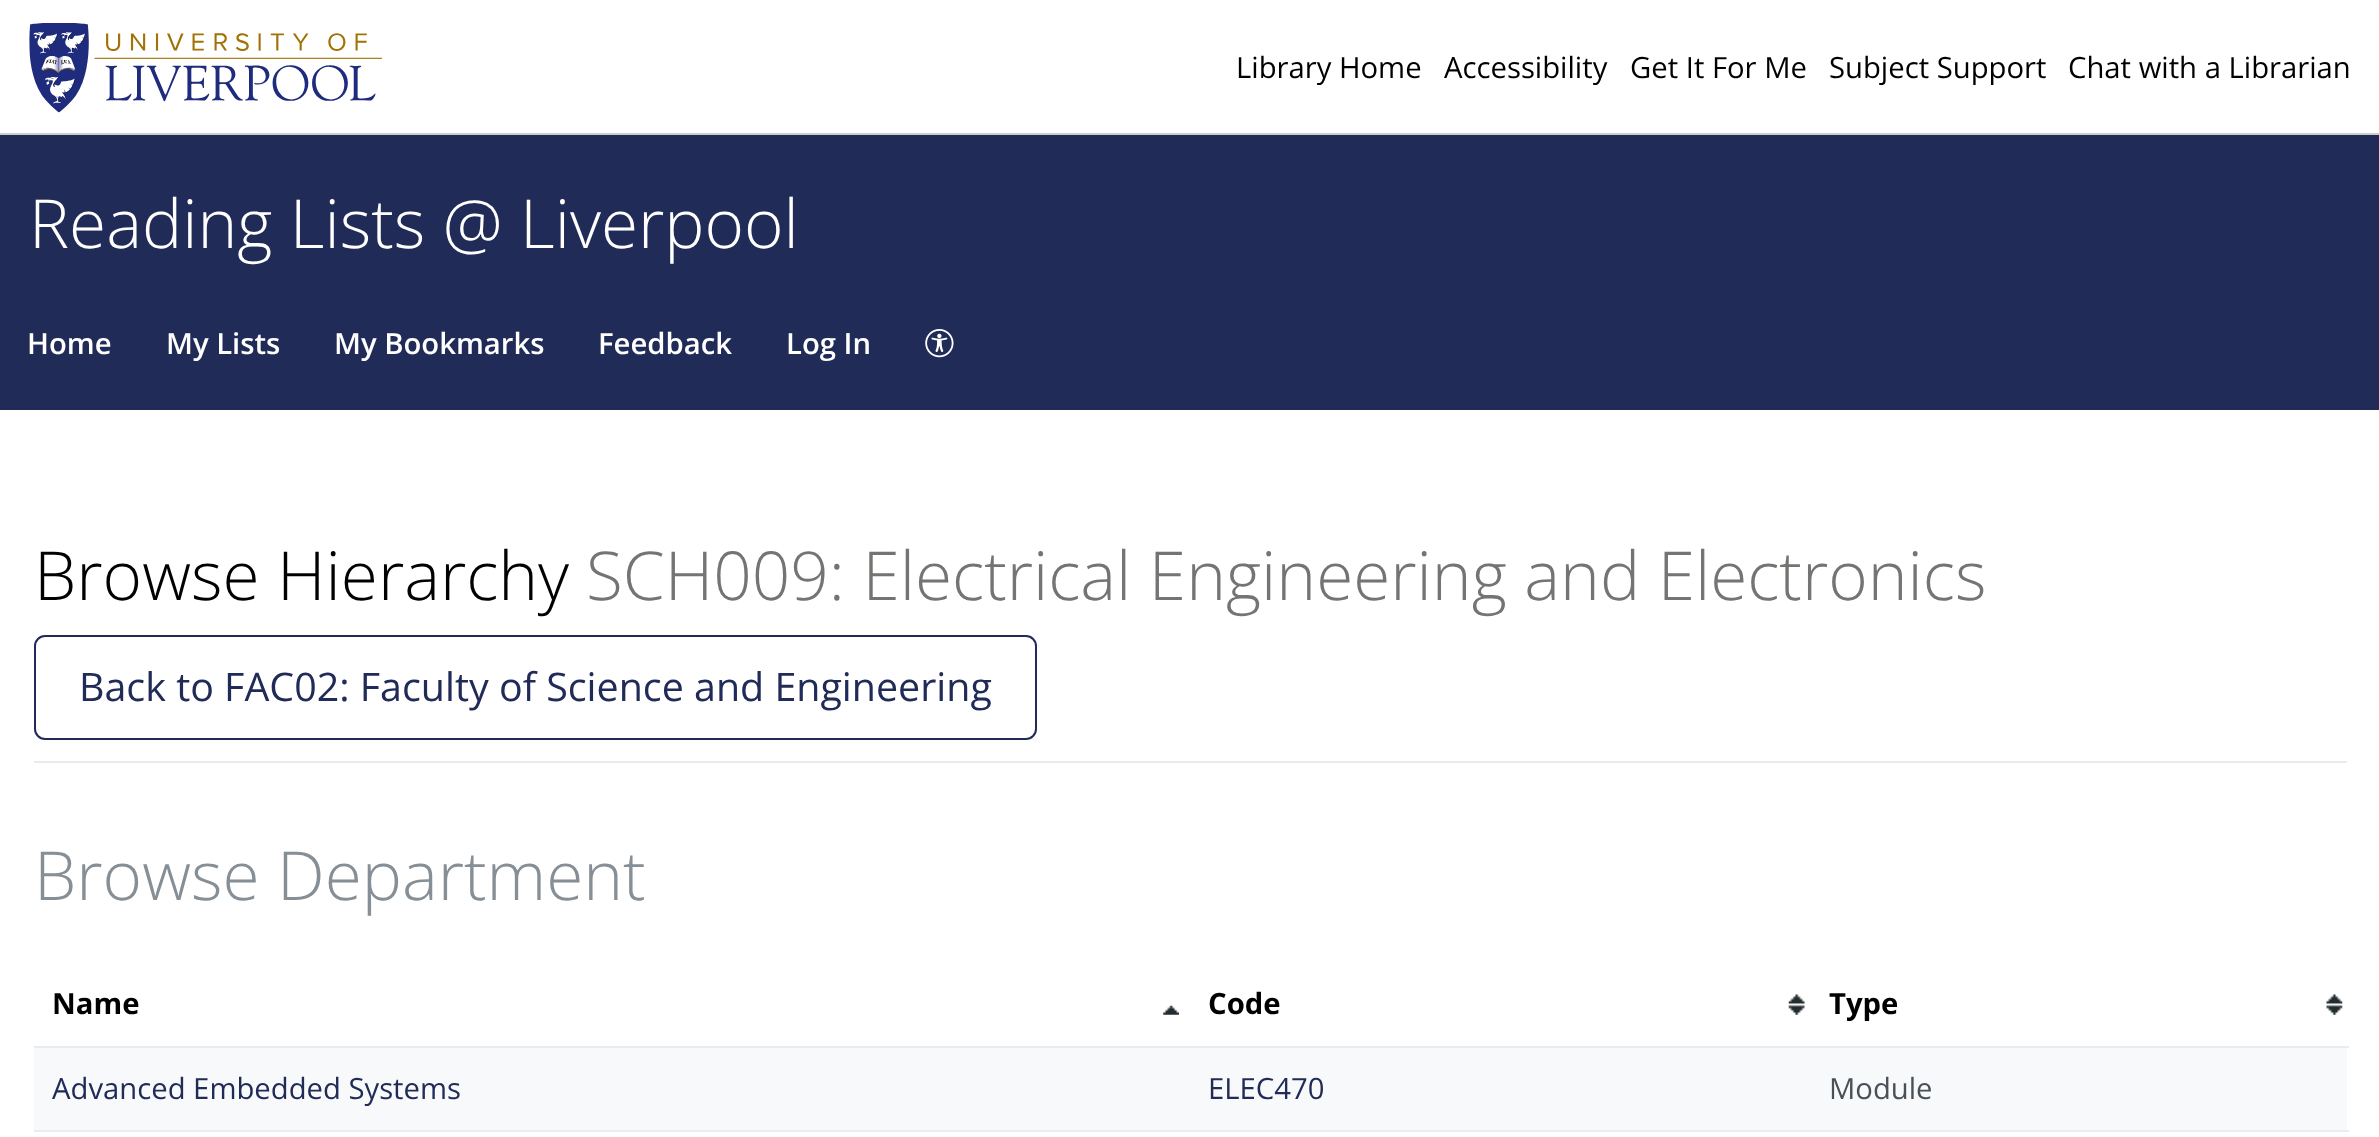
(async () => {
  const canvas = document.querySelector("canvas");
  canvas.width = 2379;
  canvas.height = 1137;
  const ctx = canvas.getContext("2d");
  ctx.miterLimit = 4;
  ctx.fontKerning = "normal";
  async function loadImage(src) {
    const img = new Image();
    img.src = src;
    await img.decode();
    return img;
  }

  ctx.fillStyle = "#ffffff";
  ctx.fillRect(0, 0, 2379, 1137);
  ctx.fillStyle = "#cccccc";
  ctx.fillRect(0, 133, 2379, 2);
  ctx.drawImage(await loadImage("img/1.png"), 29, 23, 353, 90);
  ctx.fillStyle = "#212b58";
  ctx.fillRect(0, 135, 2379, 275);
  ctx.drawImage(await loadImage("img/2.png"), 925, 329, 29, 29);
  ctx.fillStyle = "#e9ecef";
  ctx.fillRect(34, 761, 2313, 2);
  ctx.beginPath();
  ctx.roundRect(35, 636, 1001, 103, 10);
  ctx.strokeStyle = "#212b58";
  ctx.lineWidth = 2;
  ctx.stroke();
  ctx.drawImage(await loadImage("img/3.png"), 1163, 1005, 16, 10);
  ctx.drawImage(await loadImage("img/4.png"), 1788, 994, 17, 21);
  ctx.drawImage(await loadImage("img/5.png"), 2326, 994, 17, 21);
  for (const [x, y, w, h, color] of [
    [34, 1048, 2313, 82, "#f8f9fa"],
    [34, 1046, 2315, 2, "#e9ecef"],
    [34, 1130, 2315, 2, "#e9ecef"],
  ]) {
    ctx.fillStyle = color;
    ctx.fillRect(x, y, w, h);
  }
  ctx.font = "29.25px Open Sans";
  ctx.fillStyle = "#000000";
  for (const [text, x, y] of [
    ["Library Home", 1236, 78],
    ["Accessibility", 1444, 78],
    ["Get It For Me", 1630, 78],
    ["Subject Support", 1829, 78],
    ["Chat with a Librarian", 2068, 78],
  ]) {
    ctx.fillText(text, x, y);
  }
  ctx.font = "300 67.5px Open Sans";
  ctx.fillStyle = "#ffffff";
  ctx.fillText("Reading Lists @ Liverpool", 29, 248);
  ctx.font = "600 29.25px Open Sans";
  for (const [text, x, y] of [
    ["Home", 27, 354],
    ["My Lists", 166, 354],
    ["My Bookmarks", 334, 354],
    ["Feedback", 598, 354],
    ["Log In", 786, 354],
  ]) {
    ctx.fillText(text, x, y);
  }
  ctx.font = "300 67.5px Open Sans";
  ctx.fillStyle = "#000000";
  ctx.fillText("Browse Hierarchy", 34, 600);
  ctx.fillStyle = "#747472";
  ctx.fillText("SCH009: Electrical Engineering and Electronics", 586, 600);
  ctx.font = "39.4px Open Sans";
  ctx.fillStyle = "#212b58";
  ctx.fillText("Back to FAC02: Faculty of Science and Engineering", 79, 701);
  ctx.font = "300 67.5px Open Sans";
  ctx.fillStyle = "#868e96";
  ctx.fillText("Browse Department", 34, 900);
  ctx.font = "bold 29.25px Open Sans";
  ctx.fillStyle = "#000000";
  for (const [text, x, y] of [
    ["Name", 52, 1014],
    ["Code", 1208, 1014],
    ["Type", 1829, 1014],
  ]) {
    ctx.fillText(text, x, y);
  }
  ctx.font = "29.25px Open Sans";
  ctx.fillStyle = "#212b58";
  ctx.fillText("Advanced Embedded Systems", 52, 1099);
  ctx.fillText("ELEC470", 1208, 1099);
  ctx.fillStyle = "#495057";
  ctx.fillText("Module", 1829, 1099);
})();
